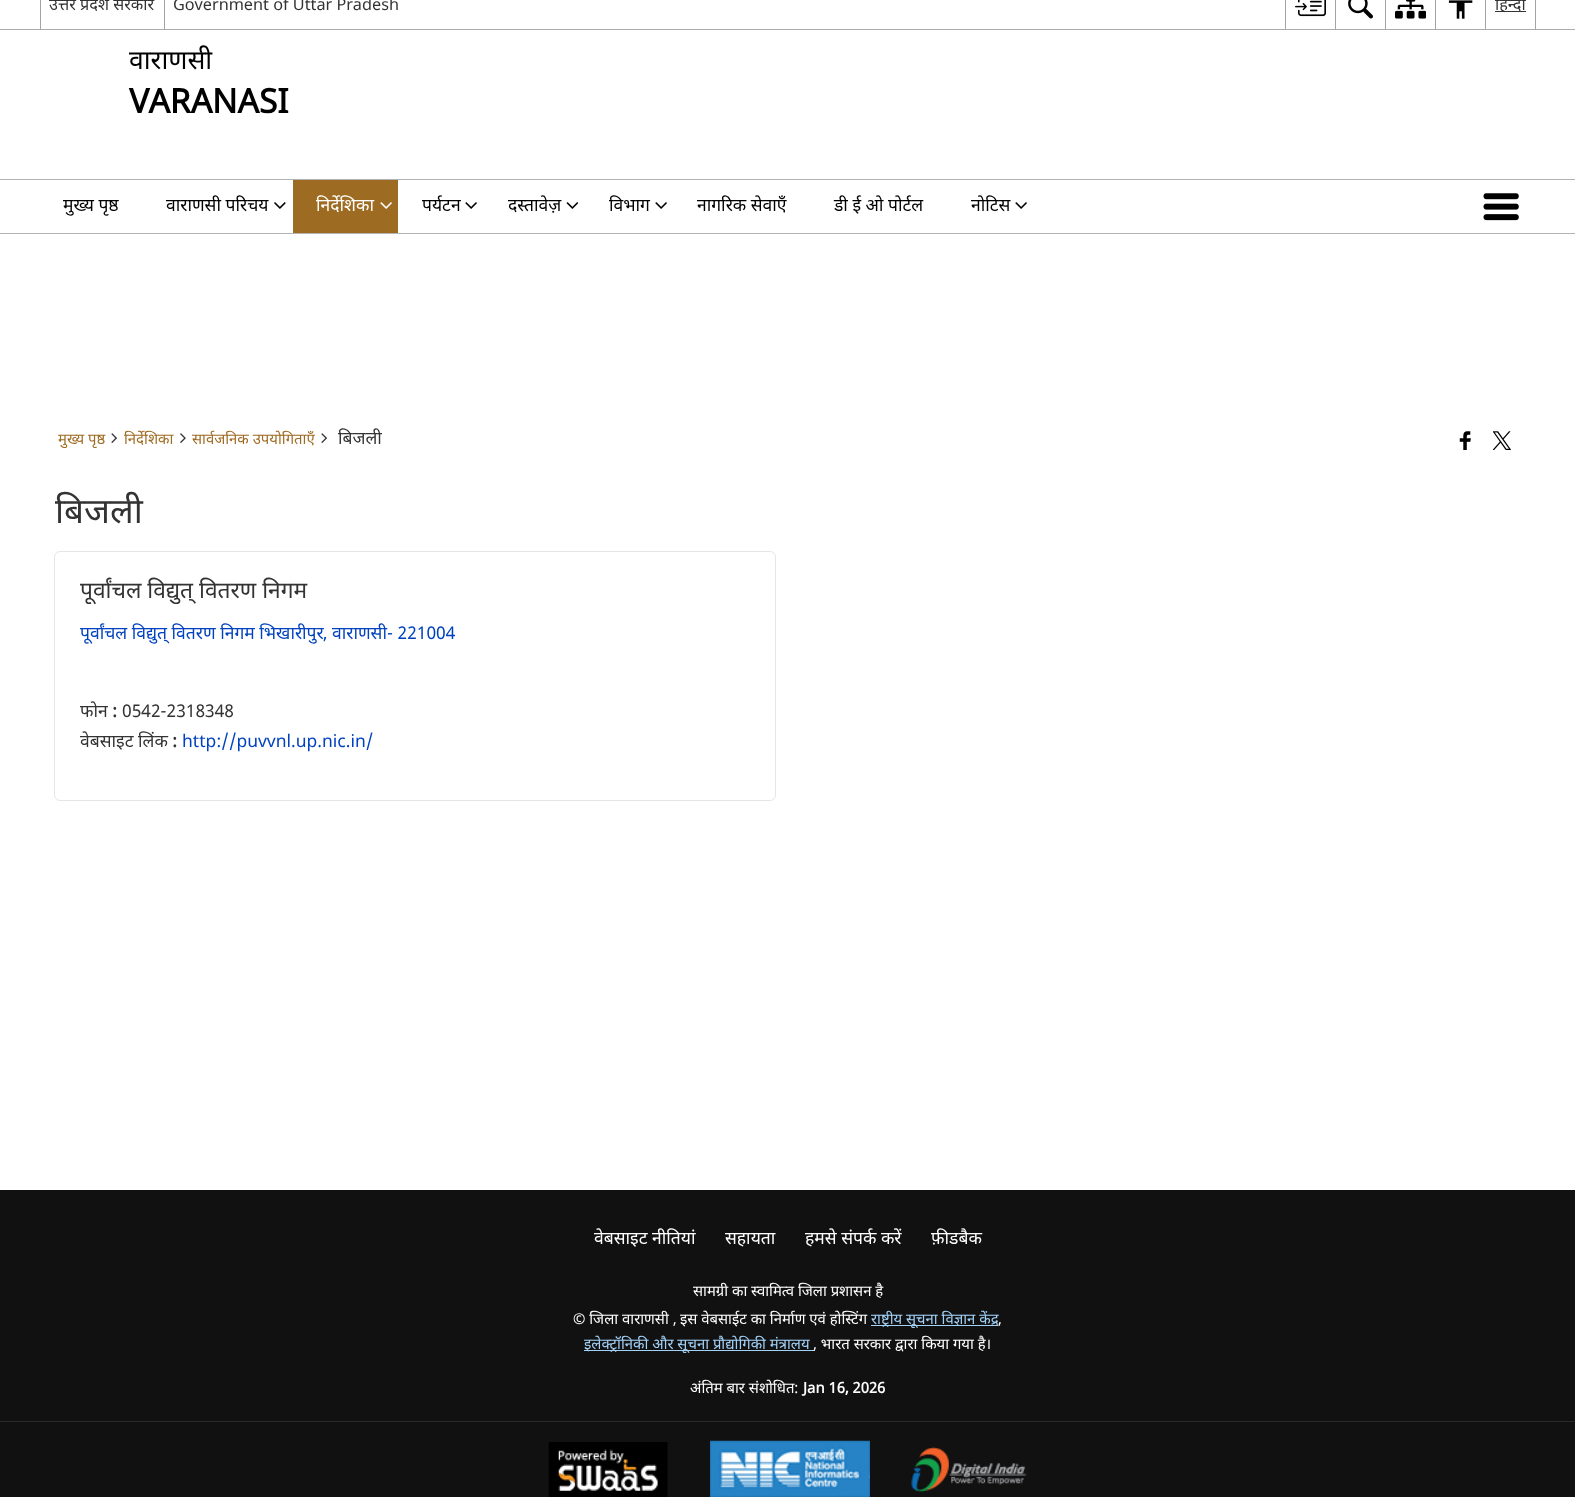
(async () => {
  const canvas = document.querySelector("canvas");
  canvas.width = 1575;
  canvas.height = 1497;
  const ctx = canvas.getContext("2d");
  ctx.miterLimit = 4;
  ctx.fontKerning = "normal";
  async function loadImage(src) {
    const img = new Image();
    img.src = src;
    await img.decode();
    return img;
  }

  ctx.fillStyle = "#ffffff";
  ctx.fillRect(0, 0, 1575, 1497);
  for (const [x, y, w, h, color] of [
    [0, 29, 1575, 1, "#ababab"],
    [40, 0, 1, 29, "#a3a3a3"],
    [164, 0, 1, 29, "#a3a3a3"],
    [1285, 0, 1, 29, "#a3a3a3"],
  ]) {
    ctx.fillStyle = color;
    ctx.fillRect(x, y, w, h);
  }
  ctx.drawImage(await loadImage("img/1.png"), 1295, 0, 31, 17);
  ctx.fillRect(1335, 0, 1, 29);
  ctx.drawImage(await loadImage("img/2.png"), 1348, 0, 25, 19);
  ctx.fillRect(1385, 0, 1, 29);
  ctx.drawImage(await loadImage("img/3.png"), 1395, 0, 31, 19);
  ctx.fillRect(1435, 0, 1, 29);
  ctx.drawImage(await loadImage("img/4.png"), 1448, 0, 25, 19);
  for (const [x, y, w, h, color] of [
    [1535, 0, 1, 29, "#a3a3a3"],
    [1485, 0, 1, 29, "#a3a3a3"],
    [1495, 11, 31, 1, "#333333"],
    [0, 179, 1575, 1, "#b3b3b3"],
    [0, 233, 1575, 1, "#b3b3b3"],
  ]) {
    ctx.fillStyle = color;
    ctx.fillRect(x, y, w, h);
  }
  ctx.drawImage(await loadImage("img/5.png"), 274, 202, 12, 7);
  ctx.fillStyle = "#9e6b22";
  ctx.fillRect(293, 180, 105, 53);
  ctx.drawImage(await loadImage("img/6.png"), 380, 202, 12, 7);
  ctx.drawImage(await loadImage("img/7.png"), 465, 202, 12, 7);
  ctx.drawImage(await loadImage("img/8.png"), 566, 202, 13, 7);
  ctx.drawImage(await loadImage("img/7.png"), 655, 202, 12, 7);
  ctx.drawImage(await loadImage("img/7.png"), 1015, 202, 12, 7);
  ctx.drawImage(await loadImage("img/9.png"), 1483, 193, 36, 28);
  ctx.drawImage(await loadImage("img/10.png"), 111, 433, 6, 10);
  ctx.drawImage(await loadImage("img/11.png"), 180, 433, 6, 10);
  ctx.drawImage(await loadImage("img/10.png"), 321, 433, 6, 10);
  ctx.drawImage(await loadImage("img/12.png"), 1459, 431, 12, 19);
  ctx.drawImage(await loadImage("img/13.png"), 1493, 431, 18, 19);
  ctx.beginPath();
  ctx.roundRect(54.5, 551.5, 721, 249, 5.5);
  ctx.strokeStyle = "#e6e6e6";
  ctx.stroke();
  for (const [x, y, w, h, color] of [
    [0, 1190, 1575, 307, "#111111"],
    [871, 1325, 127, 1, "#a3d2f9"],
    [584, 1350, 230, 1, "#a3d2f9"],
    [0, 1421, 1575, 1, "#292929"],
  ]) {
    ctx.fillStyle = color;
    ctx.fillRect(x, y, w, h);
  }
  ctx.drawImage(await loadImage("img/14.png"), 548, 1442, 120, 55);
  ctx.drawImage(await loadImage("img/15.png"), 710, 1440, 160, 57);
  ctx.drawImage(await loadImage("img/16.png"), 911, 1447, 116, 46);
  ctx.font = "16.25px Noto Sans";
  ctx.fillStyle = "#333333";
  ctx.fillText("उत्तर प्रदेश सरकार", 49, 10);
  ctx.font = "16.25px 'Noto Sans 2'";
  ctx.fillText("Government of Uttar Pradesh", 173, 10);
  ctx.font = "16.25px Noto Sans";
  ctx.fillText("हिन्दी", 1495, 10);
  ctx.font = "26.5px Noto Sans";
  ctx.fillStyle = "#000000";
  ctx.fillText("वाराणसी", 129, 69);
  ctx.font = "bold 33.5px Noto Sans";
  ctx.fillText("VARANASI", 129, 113);
  ctx.font = "17.5px Noto Sans";
  ctx.fillText("मुख्य पृष्ठ", 63, 211);
  ctx.fillText("वाराणसी परिचय", 166, 211);
  ctx.fillStyle = "#ffffff";
  ctx.fillText("निर्देशिका", 316, 211);
  ctx.fillStyle = "#000000";
  for (const [text, x, y] of [
    ["पर्यटन", 422, 211],
    ["दस्तावेज़", 508, 211],
    ["विभाग", 609, 211],
    ["नागरिक सेवाएँ", 697, 211],
    ["डी ई ओ पोर्टल", 834, 211],
    ["नोटिस", 971, 211],
  ]) {
    ctx.fillText(text, x, y);
  }
  ctx.font = "14.9px Noto Sans";
  ctx.fillStyle = "#9e6b22";
  for (const [text, x, y] of [
    ["मुख्य पृष्ठ", 58, 444],
    ["निर्देशिका", 124, 444],
    ["सार्वजनिक उपयोगिताएँ", 192, 444],
  ]) {
    ctx.fillText(text, x, y);
  }
  ctx.font = "17.5px Noto Sans";
  ctx.fillStyle = "#333333";
  ctx.fillText("बिजली", 338, 444);
  ctx.font = "35px Noto Sans";
  ctx.fillText("बिजली", 55, 523);
  ctx.font = "22.75px Noto Sans";
  ctx.fillText("पूर्वांचल विद्युत् वितरण निगम", 80, 598);
  ctx.font = "17.5px Noto Sans";
  ctx.fillStyle = "#0042bf";
  ctx.fillText("पूर्वांचल विद्युत् वितरण निगम भिखारीपुर", 80, 639);
  ctx.font = "17.5px 'Noto Sans 2'";
  ctx.fillText(",", 323, 639);
  ctx.font = "17.5px Noto Sans";
  ctx.fillText("वाराणसी", 332, 639);
  ctx.font = "17.5px 'Noto Sans 2'";
  ctx.fillText("- 221004", 387, 639);
  ctx.font = "17.5px Noto Sans";
  ctx.fillStyle = "#333333";
  ctx.fillText("फोन", 80, 717);
  ctx.font = "bold 17.5px Noto Sans";
  ctx.fillText(":", 112, 717);
  ctx.font = "17.5px 'Noto Sans 2'";
  ctx.fillText("0542-2318348", 122, 717);
  ctx.font = "17.5px Noto Sans";
  ctx.fillText("वेबसाइट लिंक", 80, 747);
  ctx.font = "bold 17.5px Noto Sans";
  ctx.fillText(":", 172, 747);
  ctx.font = "17.5px 'Noto Sans 2'";
  ctx.fillStyle = "#0042bf";
  ctx.fillText("http://puvvnl.up.nic.in/", 182, 747);
  ctx.font = "17.5px Noto Sans";
  ctx.fillStyle = "#ffffff";
  for (const [text, x, y] of [
    ["वेबसाइट नीतियां", 594, 1244],
    ["सहायता", 725, 1244],
    ["हमसे संपर्क करें", 805, 1244],
    ["फ़ीडबैक", 931, 1244],
  ]) {
    ctx.fillText(text, x, y);
  }
  ctx.font = "14.9px Noto Sans";
  for (const [text, x, y] of [
    ["सामग्री का स्वामित्व जिला प्रशासन है", 693, 1296],
    ["© जिला वाराणसी ,", 573, 1324],
    ["इस वेबसाईट का निर्माण एवं होस्टिंग", 680, 1324],
  ]) {
    ctx.fillText(text, x, y);
  }
  ctx.fillStyle = "#a3d2f9";
  ctx.fillText("राष्ट्रीय सूचना विज्ञान केंद्र", 871, 1324);
  ctx.font = "14.9px 'Noto Sans 2'";
  ctx.fillStyle = "#ffffff";
  ctx.fillText(",", 998, 1324);
  ctx.font = "14.9px Noto Sans";
  ctx.fillStyle = "#a3d2f9";
  ctx.fillText("इलेक्ट्रॉनिकी और सूचना प्रौद्योगिकी मंत्रालय", 584, 1349);
  ctx.fillStyle = "#ffffff";
  ctx.fillText(", भारत सरकार द्वारा किया गया है।", 813, 1349);
  ctx.fillText("अंतिम बार संशोधित:", 690, 1393);
  ctx.font = "bold 14.9px Noto Sans";
  ctx.fillText("Jan 16, 2026", 803, 1393);
})();
